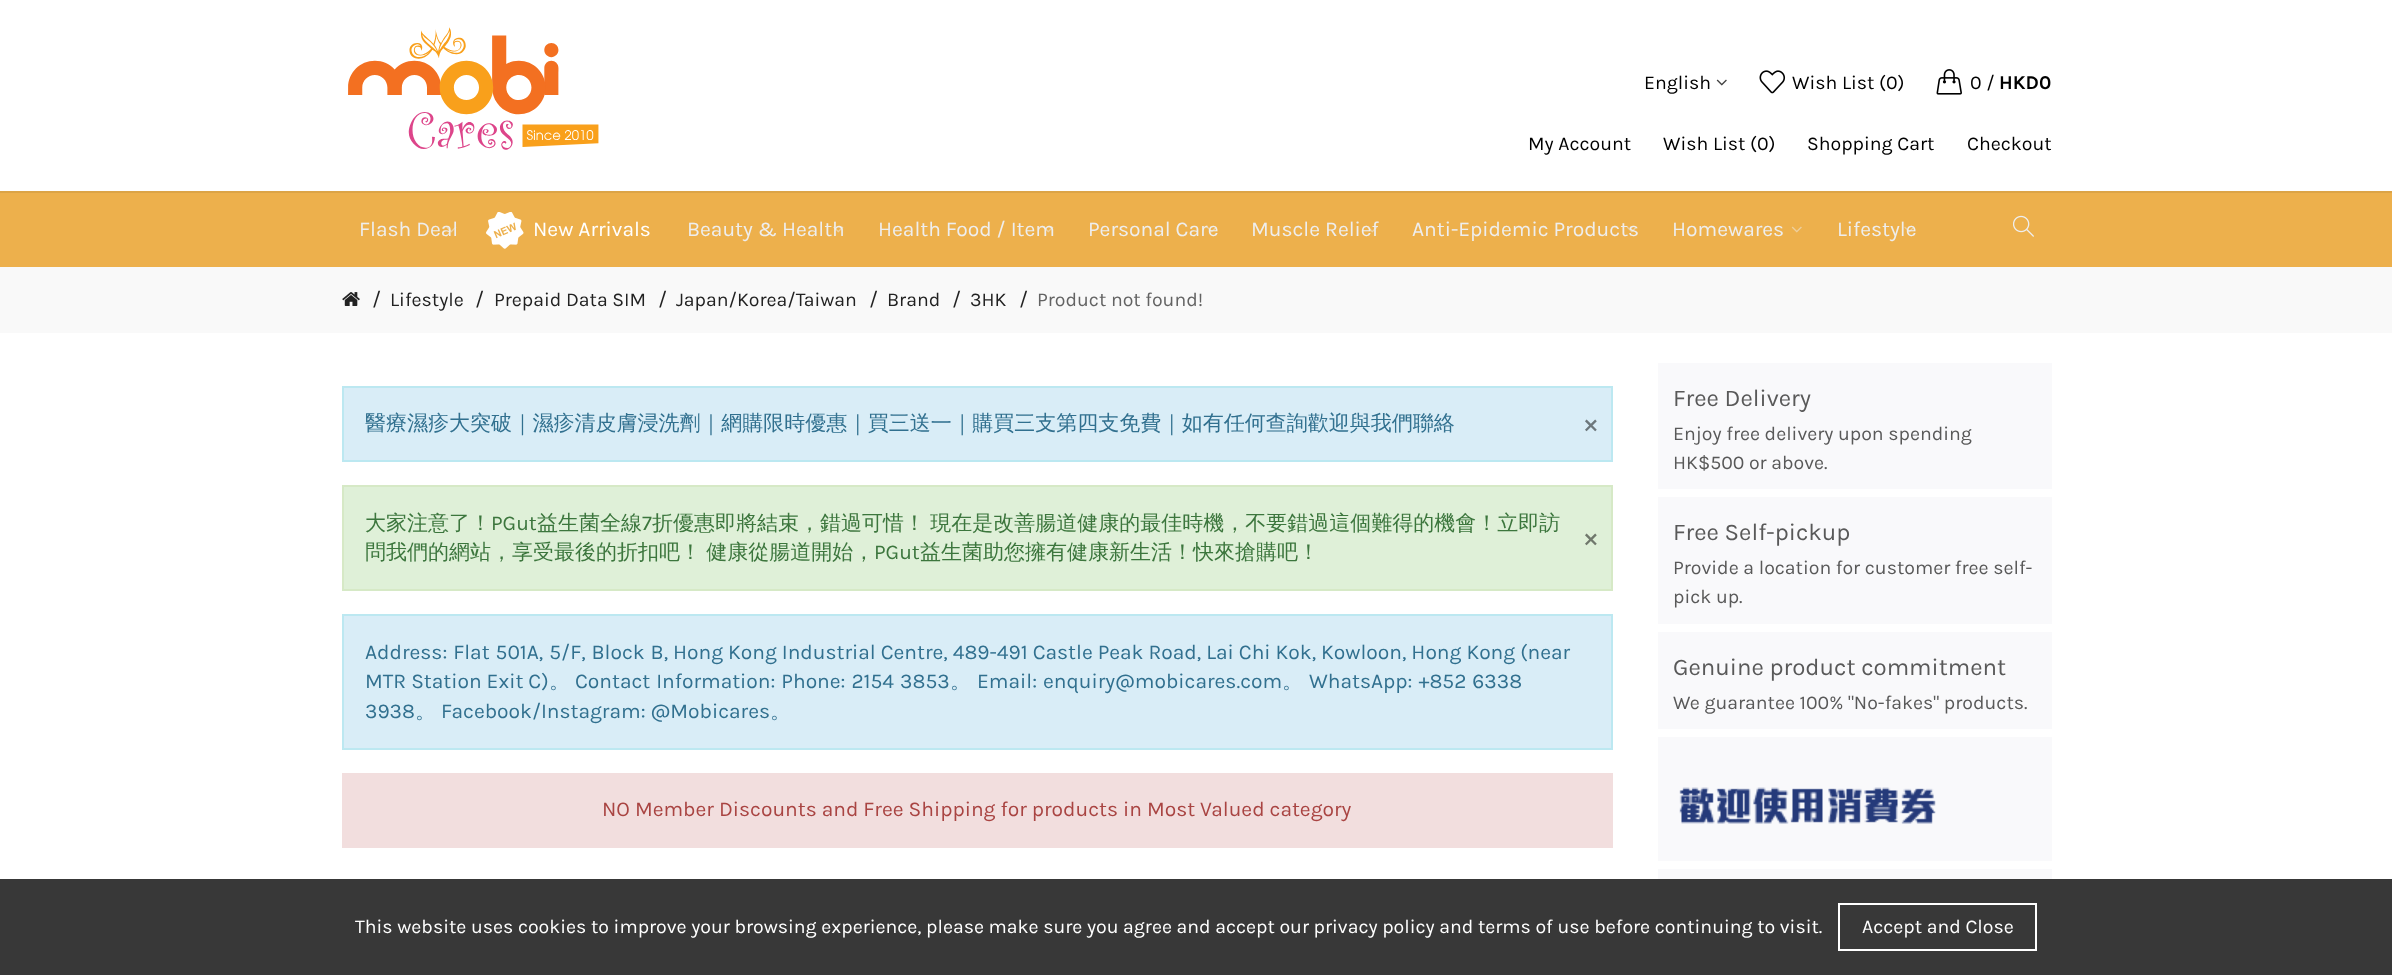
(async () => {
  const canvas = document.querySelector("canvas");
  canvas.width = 2392;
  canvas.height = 975;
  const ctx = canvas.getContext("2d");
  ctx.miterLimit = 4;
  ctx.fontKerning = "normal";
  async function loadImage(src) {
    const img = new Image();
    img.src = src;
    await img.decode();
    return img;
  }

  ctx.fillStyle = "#ffffff";
  ctx.fillRect(0, 0, 2392, 975);
  ctx.drawImage(await loadImage("img/1.png"), 348, 27, 251, 123);
  ctx.drawImage(await loadImage("img/2.png"), 1716, 79, 11, 7);
  ctx.drawImage(await loadImage("img/3.png"), 1759, 70, 27, 24);
  ctx.drawImage(await loadImage("img/4.png"), 1936, 69, 26, 26);
  ctx.fillStyle = "#edb04c";
  ctx.fillRect(0, 193, 2392, 74);
  ctx.fillStyle = "#dca447";
  ctx.fillRect(0, 191, 2392, 2);
  ctx.drawImage(await loadImage("img/6.png"), 486, 212, 38, 37);
  ctx.drawImage(await loadImage("img/12.png"), 1791, 226, 11, 7);
  ctx.drawImage(await loadImage("img/14.png"), 2013, 215, 21, 22);
  ctx.fillStyle = "#f9f9f9";
  ctx.fillRect(0, 267, 2392, 66);
  ctx.drawImage(await loadImage("img/15.png"), 342, 292, 18, 14);
  ctx.fillStyle = "#d9edf7";
  ctx.beginPath();
  ctx.rect(343, 387, 1269, 74);
  ctx.fill();
  ctx.strokeStyle = "#bce8f1";
  ctx.lineWidth = 2;
  ctx.stroke();
  ctx.fillStyle = "#dff0d8";
  ctx.beginPath();
  ctx.rect(343, 486, 1269, 104);
  ctx.fill();
  ctx.strokeStyle = "#d6e9c6";
  ctx.stroke();
  ctx.fillStyle = "#d9edf7";
  ctx.beginPath();
  ctx.rect(343, 615, 1269, 134);
  ctx.fill();
  ctx.strokeStyle = "#bce8f1";
  ctx.stroke();
  for (const [x, y, w, h, color] of [
    [342, 773, 1271, 75, "#f2dede"],
    [1658, 363, 394, 126, "#f9f9fb"],
    [1658, 497, 394, 127, "#f9f9fb"],
    [1658, 632, 394, 97, "#f9f9fb"],
    [1658, 737, 394, 124, "#f9f9fb"],
  ]) {
    ctx.fillStyle = color;
    ctx.fillRect(x, y, w, h);
  }
  ctx.drawImage(await loadImage("img/16.png"), 1679, 787, 257, 37);
  ctx.fillRect(1658, 869, 394, 10);
  ctx.fillStyle = "#383838";
  ctx.fillRect(0, 879, 2392, 96);
  ctx.strokeStyle = "#ffffff";
  ctx.strokeRect(1839, 904, 197, 46);
  ctx.font = "19.5px Karla";
  ctx.fillStyle = "#000000";
  for (const [text, x, y] of [
    ["English", 1644, 89],
    ["Wish List (0)", 1792, 89],
    ["0 /", 1970, 89],
  ]) {
    ctx.fillText(text, x, y);
  }
  ctx.font = "bold 19.5px Karla";
  ctx.fillText("HKD0", 1999, 89);
  ctx.font = "19.5px Karla";
  for (const [text, x, y] of [
    ["My Account", 1528, 150],
    ["Wish List (0)", 1663, 150],
    ["Shopping Cart", 1807, 150],
    ["Checkout", 1967, 150],
  ]) {
    ctx.fillText(text, x, y);
  }
  ctx.font = "21px Karla";
  ctx.fillStyle = "#eeeeee";
  ctx.fillText("Flash Deal", 359, 236);
  ctx.drawImage(await loadImage("img/5.png"), 446, 227, 11, 6);
  ctx.fillStyle = "#ffffff";
  ctx.fillText("New Arrivals", 533, 236);
  ctx.fillStyle = "#eeeeee";
  ctx.fillText("Beauty & Health", 687, 236);
  ctx.drawImage(await loadImage("img/7.png"), 833, 226, 11, 7);
  ctx.fillText("Health Food / Item", 878, 236);
  ctx.drawImage(await loadImage("img/8.png"), 1043, 226, 11, 7);
  ctx.fillText("Personal Care", 1088, 236);
  ctx.drawImage(await loadImage("img/9.png"), 1206, 226, 11, 7);
  ctx.fillText("Muscle Relief", 1251, 236);
  ctx.drawImage(await loadImage("img/10.png"), 1367, 227, 11, 6);
  ctx.fillText("Anti-Epidemic Products", 1412, 236);
  ctx.drawImage(await loadImage("img/11.png"), 1626, 226, 11, 7);
  ctx.fillText("Homewares", 1672, 236);
  ctx.fillText("Lifestyle", 1837, 236);
  ctx.drawImage(await loadImage("img/13.png"), 1904, 226, 10, 7);
  ctx.fillStyle = "#222222";
  ctx.fillText("/", 372, 306);
  ctx.font = "19.5px Karla";
  ctx.fillText("Lifestyle", 390, 306);
  ctx.font = "21px Karla";
  ctx.fillText("/", 475, 306);
  ctx.font = "19.5px Karla";
  ctx.fillText("Prepaid Data SIM", 494, 306);
  ctx.font = "21px Karla";
  ctx.fillText("/", 658, 306);
  ctx.font = "19.5px Karla";
  ctx.fillText("Japan/Korea/Taiwan", 676, 306);
  ctx.font = "21px Karla";
  ctx.fillText("/", 869, 306);
  ctx.font = "19.5px Karla";
  ctx.fillText("Brand", 887, 306);
  ctx.font = "21px Karla";
  ctx.fillText("/", 952, 306);
  ctx.font = "19.5px Karla";
  ctx.fillText("3HK", 970, 306);
  ctx.font = "21px Karla";
  ctx.fillText("/", 1019, 306);
  ctx.font = "19.5px Karla";
  ctx.fillStyle = "#636363";
  ctx.fillText("Product not found!", 1037, 306);
  ctx.font = "500 21px WenQuanYi Zen Hei";
  ctx.fillStyle = "#31708f";
  ctx.fillText("醫療濕疹大突破｜濕疹清皮膚浸洗劑｜網購限時優惠｜買三送一｜購買三支第四支免費｜如有任何查詢歡迎與我們聯絡", 365, 430);
  ctx.font = "30px Karla";
  ctx.fillStyle = "#6d777c";
  ctx.fillText("×", 1583, 433);
  ctx.font = "500 21px WenQuanYi Zen Hei";
  ctx.fillStyle = "#3c763d";
  ctx.fillText("大家注意了！", 365, 530);
  ctx.font = "21px Karla";
  ctx.fillText("PGut", 491, 530);
  ctx.font = "500 21px WenQuanYi Zen Hei";
  ctx.fillText("益生菌全線", 537, 530);
  ctx.font = "21px Karla";
  ctx.fillText("7", 642, 530);
  ctx.wordSpacing = "-1px";
  ctx.font = "500 21px WenQuanYi Zen Hei";
  ctx.fillText("折優惠即將結束，錯過可惜！ 現在是改善腸道健康的最佳時機，不要錯過這個難得的機會！立即訪", 652, 530);
  ctx.wordSpacing = "0px";
  ctx.font = "30px Karla";
  ctx.fillStyle = "#70786c";
  ctx.fillText("×", 1583, 547);
  ctx.wordSpacing = "-1px";
  ctx.font = "500 21px WenQuanYi Zen Hei";
  ctx.fillStyle = "#3c763d";
  ctx.fillText("問我們的網站，享受最後的折扣吧！ 健康從腸道開始，", 365, 559);
  ctx.wordSpacing = "0px";
  ctx.font = "21px Karla";
  ctx.fillText("PGut", 874, 559);
  ctx.font = "500 21px WenQuanYi Zen Hei";
  ctx.fillText("益生菌助您擁有健康新生活！快來搶購吧！", 920, 559);
  ctx.wordSpacing = "1px";
  ctx.font = "21px Karla";
  ctx.fillStyle = "#31708f";
  ctx.fillText("Address: Flat 501A, 5/F, Block B,", 365, 659);
  ctx.wordSpacing = "0px";
  ctx.fillText("Hong Kong Industrial Centre, 489-491 Castle Peak Road, Lai Chi Kok, Kowloon, Hong Kong (near", 673, 659);
  ctx.fillText("MTR Station Exit C)", 365, 688);
  ctx.font = "500 21px WenQuanYi Zen Hei";
  ctx.fillText("。", 549, 688);
  ctx.wordSpacing = "1px";
  ctx.font = "21px Karla";
  ctx.fillText("Contact Information: Phone: 2154 3853", 575, 688);
  ctx.wordSpacing = "0px";
  ctx.font = "500 21px WenQuanYi Zen Hei";
  ctx.fillText("。", 950, 688);
  ctx.wordSpacing = "1px";
  ctx.font = "21px Karla";
  ctx.fillText("Email: enquiry@mobicares.com", 977, 688);
  ctx.wordSpacing = "0px";
  ctx.font = "500 21px WenQuanYi Zen Hei";
  ctx.fillText("。", 1282, 688);
  ctx.wordSpacing = "1px";
  ctx.font = "21px Karla";
  ctx.fillText("WhatsApp: +852 6338", 1309, 688);
  ctx.wordSpacing = "0px";
  ctx.fillText("3938", 365, 718);
  ctx.font = "500 21px WenQuanYi Zen Hei";
  ctx.fillText("。", 415, 718);
  ctx.font = "21px Karla";
  ctx.fillText("Facebook/Instagram: @Mobicares", 441, 718);
  ctx.font = "500 21px WenQuanYi Zen Hei";
  ctx.fillText("。", 770, 718);
  ctx.font = "21px Karla";
  ctx.fillStyle = "#a94442";
  ctx.fillText("NO Member Discounts and Free Shipping for products in Most Valued category", 602, 816);
  ctx.font = "24px Karla";
  ctx.fillStyle = "#595959";
  ctx.fillText("Free Delivery", 1673, 406);
  ctx.font = "19.5px Karla";
  ctx.fillText("Enjoy free delivery upon spending", 1673, 440);
  ctx.fillText("HK$500 or above.", 1673, 469);
  ctx.font = "24px Karla";
  ctx.fillText("Free Self-pickup", 1673, 540);
  ctx.font = "19.5px Karla";
  ctx.fillText("Provide a location for customer free self-", 1673, 574);
  ctx.fillText("pick up.", 1673, 603);
  ctx.font = "24px Karla";
  ctx.fillText("Genuine product commitment", 1673, 675);
  ctx.font = "19.5px Karla";
  ctx.fillText("We guarantee 100% \"No-fakes\" products.", 1673, 709);
  ctx.fillStyle = "#ffffff";
  ctx.fillText("This website uses cookies to improve your browsing experience, please make sure you agree and accept our privacy policy and terms of use before continuing to visit.", 355, 933);
  ctx.fillText("Accept and Close", 1862, 933);
})();
